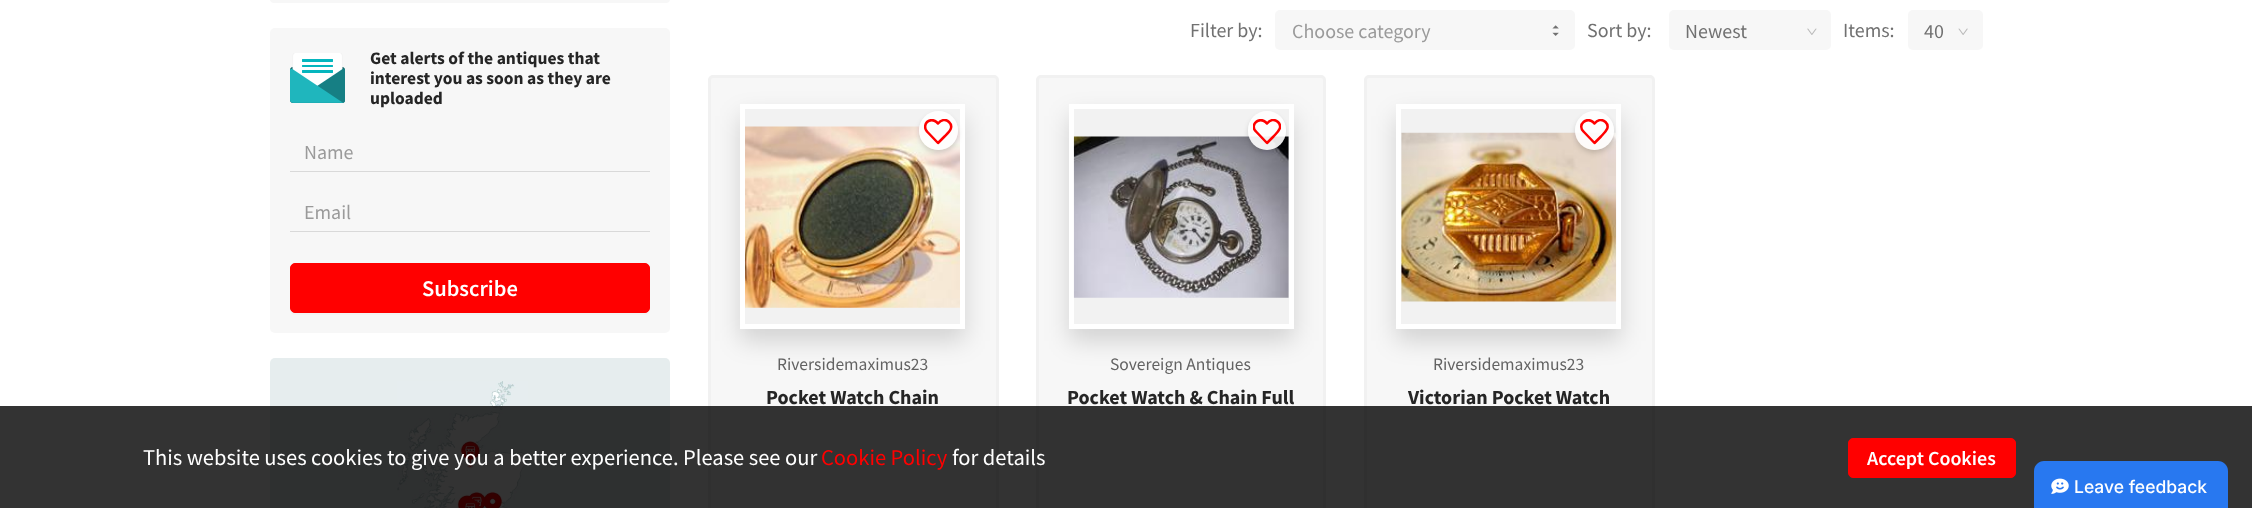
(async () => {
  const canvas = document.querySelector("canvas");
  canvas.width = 2252;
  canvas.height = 508;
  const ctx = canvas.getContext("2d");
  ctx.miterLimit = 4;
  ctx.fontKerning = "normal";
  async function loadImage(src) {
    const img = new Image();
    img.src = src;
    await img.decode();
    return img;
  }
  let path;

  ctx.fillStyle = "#ffffff";
  ctx.fillRect(0, 0, 2252, 508);
  ctx.fillStyle = "#f7f7f7";
  ctx.beginPath();
  ctx.roundRect(270, -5, 400, 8, 5);
  ctx.fill();
  ctx.beginPath();
  ctx.roundRect(270, 28, 400, 305, 5);
  ctx.fill();
  ctx.drawImage(await loadImage("img/1.png"), 290, 53, 55, 50);
  ctx.fillStyle = "#d9d9d9";
  ctx.fillRect(290, 171, 360, 1);
  ctx.fillRect(290, 231, 360, 1);
  ctx.fillStyle = "#f3f3f3";
  path = new Path2D("M290 308V310C290 313 292 315 295 315H645C648 315 650 313 650 310V308C650 310 648 312 645 312H295C292 312 290 310 290 308Z");
  ctx.fill(path);
  ctx.fillStyle = "#ff0000";
  ctx.beginPath();
  ctx.roundRect(290.5, 263.5, 359, 49, 4.5);
  ctx.fill();
  ctx.strokeStyle = "#ff0000";
  ctx.stroke();
  ctx.fillStyle = "#e6edee";
  ctx.beginPath();
  ctx.roundRect(270, 358, 400, 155, 5);
  ctx.fill();
  ctx.drawImage(await loadImage("img/2.png"), 397, 381, 131, 127);
  ctx.fillStyle = "#f7f7f7";
  ctx.beginPath();
  ctx.roundRect(1275, 10, 300, 40, 5);
  ctx.fill();
  ctx.drawImage(await loadImage("img/3.png"), 1552, 25, 7, 11);
  ctx.beginPath();
  ctx.roundRect(1669, 10, 162, 40, 5);
  ctx.fill();
  ctx.drawImage(await loadImage("img/4.png"), 1807, 28, 10, 7);
  ctx.beginPath();
  ctx.roundRect(1908, 10, 75, 40, 5);
  ctx.fill();
  ctx.drawImage(await loadImage("img/5.png"), 1958, 28, 10, 7);
  ctx.beginPath();
  ctx.roundRect(709.5, 76.5, 288, 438, 3.5);
  ctx.fill();
  ctx.strokeStyle = "#f1f1f1";
  ctx.lineWidth = 3;
  ctx.stroke();
  ctx.fillStyle = "rgba(0, 0, 0, 0.15)";
  ctx.filter = "blur(12.5px)";
  ctx.beginPath();
  ctx.rect(740, 116, 225, 225);
  ctx.fill();
  ctx.filter = "none";
  ctx.strokeStyle = "#ffffff";
  ctx.lineWidth = 5;
  ctx.strokeRect(742.5, 106.5, 220, 220);
  ctx.fillStyle = "#f2f2f2";
  ctx.fillRect(745, 109, 215, 215);
  ctx.drawImage(await loadImage("img/6.png"), 745, 126, 215, 182);
  ctx.save();
  path = new Path2D("M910 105H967V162H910ZM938.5 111C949.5 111 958 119.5 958 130.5C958 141.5 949.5 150 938.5 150C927.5 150 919 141.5 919 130.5C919 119.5 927.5 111 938.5 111Z");
  ctx.clip(path, "evenodd");
  ctx.fillStyle = "rgba(0, 0, 0, 0.15)";
  ctx.filter = "blur(2.5px)";
  ctx.beginPath();
  ctx.roundRect(919, 114, 39, 39, 19.5);
  ctx.fill();
  ctx.filter = "none";
  ctx.restore();
  ctx.fillStyle = "rgba(255, 255, 255, 0.9)";
  ctx.beginPath();
  ctx.arc(938.5, 130.5, 19.5, 0, Math.PI * 2);
  ctx.fill();
  ctx.save();
  ctx.beginPath();
  ctx.rect(924, 119, 29, 26);
  ctx.clip();
  path = new Path2D("M949 122C945.5 118.5 941 120 938 123.5L936.5 122C934 119.5 929.5 119.5 927 122C924.5 124.5 924.5 129 927 131.5L938 143L944.5 136.5C948.5 132.5 954.5 127.5 949 122Z");
  ctx.strokeStyle = "#ff0000";
  ctx.lineWidth = 2.5;
  ctx.lineCap = "round";
  ctx.lineJoin = "round";
  ctx.stroke(path);
  ctx.restore();
  ctx.fillStyle = "#f7f7f7";
  ctx.beginPath();
  ctx.roundRect(1037.5, 76.5, 287, 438, 3.5);
  ctx.fill();
  ctx.strokeStyle = "#f1f1f1";
  ctx.lineWidth = 3;
  ctx.stroke();
  ctx.fillStyle = "rgba(0, 0, 0, 0.15)";
  ctx.filter = "blur(12.5px)";
  ctx.beginPath();
  ctx.rect(1069, 116, 225, 225);
  ctx.fill();
  ctx.filter = "none";
  ctx.strokeStyle = "#ffffff";
  ctx.lineWidth = 5;
  ctx.strokeRect(1071.5, 106.5, 220, 220);
  ctx.fillStyle = "#f2f2f2";
  ctx.fillRect(1074, 109, 215, 215);
  ctx.drawImage(await loadImage("img/7.png"), 1073, 136, 216, 162);
  ctx.save();
  path = new Path2D("M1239 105H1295V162H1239ZM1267 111C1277.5 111 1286 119.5 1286 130V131C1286 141.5 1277.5 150 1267 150C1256.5 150 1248 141.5 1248 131V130C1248 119.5 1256.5 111 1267 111Z");
  ctx.clip(path, "evenodd");
  ctx.fillStyle = "rgba(0, 0, 0, 0.15)";
  ctx.filter = "blur(2.5px)";
  ctx.beginPath();
  ctx.roundRect(1248, 114, 38, 39, 19);
  ctx.fill();
  ctx.filter = "none";
  ctx.restore();
  ctx.fillStyle = "rgba(255, 255, 255, 0.9)";
  ctx.beginPath();
  ctx.roundRect(1248, 111, 38, 39, 19);
  ctx.fill();
  ctx.save();
  ctx.beginPath();
  ctx.rect(1253, 119, 28, 26);
  ctx.clip();
  path = new Path2D("M1278 122C1274 118.5 1270 120 1267 123.5L1265.5 122C1263 119.5 1258.5 119.5 1256 122C1253 124.5 1253 129 1256 131.5L1267 143L1273.5 136.5C1277 132.5 1283.5 127.5 1278 122Z");
  ctx.strokeStyle = "#ff0000";
  ctx.lineWidth = 2.5;
  ctx.lineCap = "round";
  ctx.lineJoin = "round";
  ctx.stroke(path);
  ctx.restore();
  ctx.fillStyle = "#f7f7f7";
  ctx.beginPath();
  ctx.roundRect(1365.5, 76.5, 288, 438, 3.5);
  ctx.fill();
  ctx.strokeStyle = "#f1f1f1";
  ctx.lineWidth = 3;
  ctx.stroke();
  ctx.fillStyle = "rgba(0, 0, 0, 0.15)";
  ctx.filter = "blur(12.5px)";
  ctx.beginPath();
  ctx.rect(1396, 116, 225, 225);
  ctx.fill();
  ctx.filter = "none";
  ctx.strokeStyle = "#ffffff";
  ctx.lineWidth = 5;
  ctx.strokeRect(1398.5, 106.5, 220, 220);
  ctx.fillStyle = "#f2f2f2";
  ctx.fillRect(1401, 109, 215, 215);
  ctx.drawImage(await loadImage("img/8.png"), 1401, 132, 216, 170);
  ctx.save();
  path = new Path2D("M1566 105H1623V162H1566ZM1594.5 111C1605.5 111 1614 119.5 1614 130.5C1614 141.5 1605.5 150 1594.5 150C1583.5 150 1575 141.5 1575 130.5C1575 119.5 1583.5 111 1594.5 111Z");
  ctx.clip(path, "evenodd");
  ctx.fillStyle = "rgba(0, 0, 0, 0.15)";
  ctx.filter = "blur(2.5px)";
  ctx.beginPath();
  ctx.roundRect(1575, 114, 39, 39, 19.5);
  ctx.fill();
  ctx.filter = "none";
  ctx.restore();
  ctx.fillStyle = "rgba(255, 255, 255, 0.9)";
  ctx.beginPath();
  ctx.arc(1594.5, 130.5, 19.5, 0, Math.PI * 2);
  ctx.fill();
  ctx.save();
  ctx.beginPath();
  ctx.rect(1580, 119, 29, 26);
  ctx.clip();
  path = new Path2D("M1605.5 122C1601.5 118.5 1597.5 120 1594.5 123.5L1593 122C1590.5 119.5 1586 119.5 1583.5 122C1580.5 124.5 1580.5 129 1583.5 131.5L1594.5 143L1601 136.5C1604.5 132.5 1611 127.5 1605.5 122Z");
  ctx.strokeStyle = "#ff0000";
  ctx.lineWidth = 2.5;
  ctx.lineCap = "round";
  ctx.lineJoin = "round";
  ctx.stroke(path);
  ctx.restore();
  ctx.fillStyle = "rgba(0, 0, 0, 0.8)";
  ctx.fillRect(0, 406, 2252, 102);
  ctx.fillStyle = "#ff0000";
  ctx.beginPath();
  ctx.roundRect(1848.5, 438.5, 167, 39, 4.5);
  ctx.fill();
  ctx.strokeStyle = "#ff0000";
  ctx.lineWidth = 1;
  ctx.stroke();
  ctx.fillStyle = "#2878f0";
  path = new Path2D("M2044 461H2218C2223.5 461 2228 465.5 2228 471V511H2034V471C2034 465.5 2038.5 461 2044 461Z");
  ctx.fill(path);
  ctx.drawImage(await loadImage("img/9.png"), 2051, 478, 18, 16);
  ctx.font = "bold 17.5px Source Sans Pro";
  ctx.fillStyle = "#252525";
  for (const [text, x, y] of [
    ["Get alerts of the antiques that", 370, 64],
    ["interest you as soon as they are", 370, 84],
    ["uploaded", 370, 104],
  ]) {
    ctx.fillText(text, x, y);
  }
  ctx.font = "20px Source Sans Pro";
  ctx.fillStyle = "#9a9a9a";
  ctx.fillText("Name", 304, 159);
  ctx.fillText("Email", 304, 219);
  ctx.font = "600 22.5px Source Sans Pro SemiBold";
  ctx.fillStyle = "#ffffff";
  ctx.fillText("Subscribe", 422, 296);
  ctx.font = "20px Source Sans Pro";
  ctx.fillStyle = "#717171";
  ctx.fillText("Filter by:", 1190, 37);
  ctx.fillStyle = "#9a9a9a";
  ctx.fillText("Choose category", 1292, 38);
  ctx.fillStyle = "#717171";
  for (const [text, x, y] of [
    ["Sort by:", 1587, 37],
    ["Newest", 1685, 38],
    ["Items:", 1843, 37],
    ["40", 1924, 38],
  ]) {
    ctx.fillText(text, x, y);
  }
  ctx.font = "17.5px Source Sans Pro";
  ctx.fillStyle = "#636363";
  ctx.fillText("Riversidemaximus23", 777, 370);
  ctx.font = "bold 20px Source Sans Pro";
  ctx.fillStyle = "#252525";
  ctx.fillText("Pocket Watch Chain", 766, 404);
  ctx.font = "17.5px Source Sans Pro";
  ctx.fillStyle = "#636363";
  ctx.fillText("Sovereign Antiques", 1110, 370);
  ctx.font = "bold 20px Source Sans Pro";
  ctx.fillStyle = "#252525";
  ctx.fillText("Pocket Watch & Chain Full", 1067, 404);
  ctx.font = "17.5px Source Sans Pro";
  ctx.fillStyle = "#636363";
  ctx.fillText("Riversidemaximus23", 1433, 370);
  ctx.font = "bold 20px Source Sans Pro";
  ctx.fillStyle = "#252525";
  ctx.fillText("Victorian Pocket Watch", 1408, 404);
  ctx.font = "22.5px Source Sans Pro";
  ctx.fillStyle = "#ffffff";
  ctx.fillText("This website uses cookies to give you a better experience. Please see our", 143, 465);
  ctx.fillStyle = "#ff0000";
  ctx.fillText("Cookie Policy", 821, 465);
  ctx.fillStyle = "#ffffff";
  ctx.fillText("for details", 952, 465);
  ctx.font = "600 20px Source Sans Pro SemiBold";
  ctx.fillText("Accept Cookies", 1867, 465);
  ctx.font = "500 17.5px Inter";
  ctx.fillText("Leave feedback", 2074, 493);
})();
